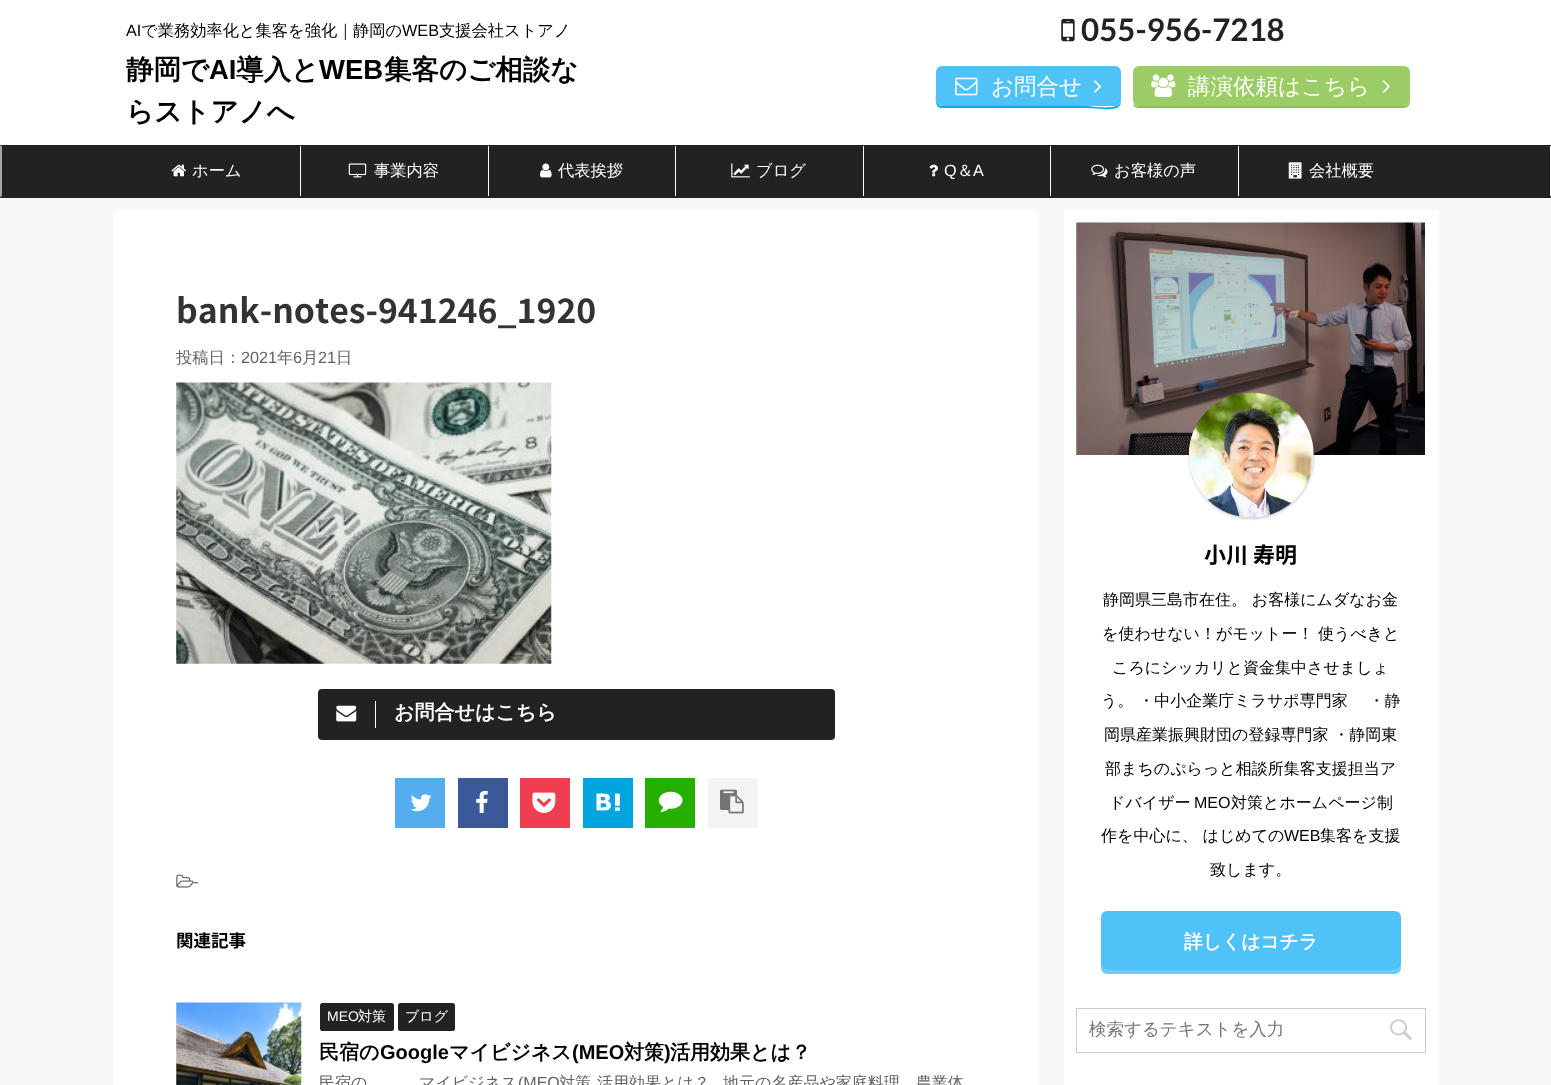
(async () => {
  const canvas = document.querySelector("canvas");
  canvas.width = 1551;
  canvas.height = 1085;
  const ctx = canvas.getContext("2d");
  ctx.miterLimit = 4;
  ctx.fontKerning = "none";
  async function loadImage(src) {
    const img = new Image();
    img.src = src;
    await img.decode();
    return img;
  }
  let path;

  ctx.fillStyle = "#f7f7f7";
  ctx.fillRect(0, 0, 1551, 1085);
  ctx.fillStyle = "#ffffff";
  ctx.fillRect(0, 0, 1551, 145);
  ctx.drawImage(await loadImage("img/1.png"), 1061, 18, 14, 24);
  ctx.fillStyle = "#03a9f4";
  path = new Path2D("M936 72V93C936 98 934 108 942 108H1086C1099 108 1121 113 1121 102C1118 111 1092 106 1086 106H942C936 106 936 100 936 95Z");
  ctx.fill(path);
  ctx.fillStyle = "#4fc3f7";
  ctx.beginPath();
  ctx.roundRect(936, 66, 185, 40, 6);
  ctx.fill();
  ctx.drawImage(await loadImage("img/2.png"), 955, 77, 23, 19);
  ctx.drawImage(await loadImage("img/3.png"), 1094, 80, 8, 13);
  ctx.fillStyle = "#8bc34a";
  path = new Path2D("M1133 103C1133 106 1136 108 1139 108H1404C1407 108 1410 105 1410 102V100C1410 103 1407 106 1404 106H1139C1136 106 1134 105 1133 103Z");
  ctx.fill(path);
  ctx.fillStyle = "#9ccc65";
  ctx.beginPath();
  ctx.roundRect(1133, 66, 277, 40, 6);
  ctx.fill();
  ctx.drawImage(await loadImage("img/4.png"), 1151, 74, 25, 23);
  ctx.drawImage(await loadImage("img/5.png"), 1382, 80, 8, 13);
  ctx.fillStyle = "#222222";
  ctx.beginPath();
  ctx.roundRect(0, 145, 1551, 53, 1);
  ctx.fill();
  path = new Path2D("M1 146H1550.5");
  ctx.strokeStyle = "#222222";
  ctx.lineWidth = 1.2;
  ctx.stroke(path);
  ctx.fillStyle = "#ffffff";
  ctx.fillRect(1550, 146, 1, 51);
  ctx.fillStyle = "#222222";
  ctx.fillRect(1550, 196, 1, 1);
  path = new Path2D("M1 196.5V146");
  ctx.strokeStyle = "#ffffff";
  ctx.stroke(path);
  ctx.fillStyle = "#ffffff";
  ctx.fillRect(300, 146, 1, 50);
  ctx.drawImage(await loadImage("img/6.png"), 171, 164, 16, 13);
  ctx.fillRect(488, 146, 1, 50);
  ctx.drawImage(await loadImage("img/7.png"), 348, 163, 19, 15);
  ctx.fillRect(675, 146, 1, 50);
  ctx.drawImage(await loadImage("img/8.png"), 540, 163, 12, 15);
  ctx.fillRect(863, 146, 1, 50);
  ctx.drawImage(await loadImage("img/9.png"), 731, 163, 19, 15);
  ctx.fillRect(1050, 146, 1, 50);
  ctx.drawImage(await loadImage("img/10.png"), 929, 164, 9, 13);
  ctx.fillRect(1238, 146, 1, 50);
  ctx.drawImage(await loadImage("img/11.png"), 1091, 164, 17, 14);
  ctx.drawImage(await loadImage("img/12.png"), 1288, 162, 14, 17);
  ctx.beginPath();
  ctx.roundRect(114, 210, 925, 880, 5);
  ctx.fill();
  ctx.drawImage(await loadImage("img/13.png"), 176, 382, 376, 282);
  ctx.fillStyle = "#222222";
  ctx.beginPath();
  ctx.roundRect(318, 689, 517, 51, 4);
  ctx.fill();
  ctx.drawImage(await loadImage("img/14.png"), 336, 705, 21, 17);
  ctx.fillStyle = "#ffffff";
  ctx.fillRect(375, 701, 1, 27);
  ctx.fillStyle = "#55acee";
  ctx.fillRect(395, 778, 50, 50);
  ctx.drawImage(await loadImage("img/15.png"), 410, 794, 22, 18);
  ctx.fillStyle = "#3b5998";
  ctx.fillRect(458, 778, 50, 50);
  ctx.drawImage(await loadImage("img/16.png"), 476, 790, 12, 23);
  ctx.fillStyle = "#f03e51";
  ctx.fillRect(520, 778, 50, 50);
  ctx.drawImage(await loadImage("img/17.png"), 532, 792, 24, 21);
  ctx.fillStyle = "#00a5de";
  ctx.fillRect(583, 778, 50, 50);
  ctx.drawImage(await loadImage("img/18.png"), 596, 793, 24, 18);
  ctx.fillStyle = "#25af00";
  ctx.fillRect(645, 778, 50, 50);
  ctx.drawImage(await loadImage("img/19.png"), 658, 791, 25, 22);
  ctx.fillStyle = "#f3f3f3";
  ctx.fillRect(708, 778, 50, 50);
  ctx.drawImage(await loadImage("img/20.png"), 720, 789, 24, 25);
  ctx.drawImage(await loadImage("img/21.png"), 176, 874, 18, 14);
  ctx.drawImage(await loadImage("img/22.png"), 176, 1002, 126, 83);
  ctx.fillStyle = "#222222";
  ctx.beginPath();
  ctx.roundRect(320, 1003, 74, 28, 2.5);
  ctx.fill();
  ctx.beginPath();
  ctx.roundRect(398, 1003, 57, 28, 2.5);
  ctx.fill();
  ctx.fillStyle = "#ffffff";
  ctx.fillRect(1064, 210, 375, 875);
  ctx.drawImage(await loadImage("img/23.png"), 1076, 222, 349, 233);
  ctx.fillStyle = "rgba(0, 0, 0, 0.2)";
  ctx.filter = "blur(1px)";
  ctx.beginPath();
  ctx.roundRect(1189, 394, 125, 125, 62.5);
  ctx.fill();
  ctx.filter = "none";
  ctx.drawImage(await loadImage("img/24.png"), 1188, 392, 126, 126);
  ctx.fillStyle = "#6fccf7";
  path = new Path2D("M1101 919V968C1101 971 1104 974 1107 974H1395C1398 974 1401 971 1401 968V966C1400 968 1398 970 1395 970H1108C1104 970 1101 967 1101 964Z");
  ctx.fill(path);
  ctx.fillStyle = "#4fc3f7";
  ctx.beginPath();
  ctx.roundRect(1101, 911, 300, 59, 6);
  ctx.fill();
  ctx.strokeStyle = "#cccccc";
  ctx.lineWidth = 1;
  ctx.strokeRect(1076.5, 1008.5, 349, 44);
  ctx.drawImage(await loadImage("img/25.png"), 1390, 1019, 22, 21);
  ctx.font = "16.25px Liberation Sans";
  ctx.fillStyle = "#000000";
  ctx.fillText("AI", 126, 36);
  ctx.font = "500 16.25px WenQuanYi Zen Hei";
  ctx.fillText("で業務効率化と集客を強化｜静岡の", 141, 36);
  ctx.font = "16.25px Liberation Sans";
  ctx.fillText("WEB", 402, 36);
  ctx.font = "500 16.25px WenQuanYi Zen Hei";
  ctx.fillText("支援会社ストアノ", 439, 36);
  ctx.font = "bold 27.5px WenQuanYi Zen Hei";
  ctx.fillText("静岡で", 126, 79);
  ctx.font = "bold 27.5px Liberation Sans";
  ctx.fillText("AI", 209, 79);
  ctx.font = "bold 27.5px WenQuanYi Zen Hei";
  ctx.fillText("導入と", 236, 79);
  ctx.font = "bold 27.5px Liberation Sans";
  ctx.fillText("WEB", 319, 79);
  ctx.font = "bold 27.5px WenQuanYi Zen Hei";
  ctx.fillText("集客のご相談な", 384, 79);
  ctx.fillText("らストアノへ", 126, 121);
  ctx.font = "bold 31.25px Lato";
  ctx.fillStyle = "#222222";
  ctx.fillText("055-956-7218", 1081, 41);
  ctx.font = "500 22.5px WenQuanYi Zen Hei";
  ctx.fillStyle = "#ffffff";
  ctx.fillText("お問合せ", 991, 94);
  ctx.fillText("講演依頼はこちら", 1188, 94);
  ctx.font = "500 16.25px WenQuanYi Zen Hei";
  for (const [text, x, y] of [
    ["ホーム", 192, 176],
    ["事業内容", 374, 176],
    ["代表挨拶", 558, 176],
    ["ブログ", 756, 176],
  ]) {
    ctx.fillText(text, x, y);
  }
  ctx.font = "16.25px Liberation Sans";
  ctx.fillText("Q", 944, 176);
  ctx.font = "500 16.25px WenQuanYi Zen Hei";
  ctx.fillText("＆", 957, 176);
  ctx.font = "16.25px Liberation Sans";
  ctx.fillText("A", 973, 176);
  ctx.font = "500 16.25px WenQuanYi Zen Hei";
  ctx.fillText("お客様の声", 1114, 176);
  ctx.fillText("会社概要", 1309, 176);
  ctx.font = "bold 33.75px Noto Sans JP";
  ctx.fillStyle = "#333333";
  ctx.fillText("bank-notes-941246_1920", 176, 323);
  ctx.font = "500 16.25px WenQuanYi Zen Hei";
  ctx.fillStyle = "#616161";
  ctx.fillText("投稿日：", 176, 363);
  ctx.font = "16.25px Liberation Sans";
  ctx.fillText("2021", 241, 363);
  ctx.font = "500 16.25px WenQuanYi Zen Hei";
  ctx.fillText("年", 277, 363);
  ctx.font = "16.25px Liberation Sans";
  ctx.fillText("6", 293, 363);
  ctx.font = "500 16.25px WenQuanYi Zen Hei";
  ctx.fillText("月", 302, 363);
  ctx.font = "16.25px Liberation Sans";
  ctx.fillText("21", 318, 363);
  ctx.font = "500 16.25px WenQuanYi Zen Hei";
  ctx.fillText("日", 336, 363);
  ctx.font = "bold 20px WenQuanYi Zen Hei";
  ctx.fillStyle = "#ffffff";
  ctx.fillText("お問合せはこちら", 394, 719);
  ctx.font = "16.25px Liberation Sans";
  ctx.fillStyle = "#616161";
  ctx.fillText("-", 193, 887);
  ctx.font = "bold 17.5px Noto Sans JP";
  ctx.fillStyle = "#000000";
  ctx.fillText("関連記事", 176, 947);
  ctx.font = "14px Liberation Sans";
  ctx.fillStyle = "#ffffff";
  ctx.fillText("MEO", 327, 1021);
  ctx.font = "500 14px WenQuanYi Zen Hei";
  ctx.fillText("対策", 358, 1021);
  ctx.fillText("ブログ", 405, 1021);
  ctx.font = "bold 20px WenQuanYi Zen Hei";
  ctx.fillStyle = "#000000";
  ctx.fillText("民宿の", 319, 1059);
  ctx.font = "bold 20px Liberation Sans";
  ctx.fillText("Google", 380, 1059);
  ctx.font = "bold 20px WenQuanYi Zen Hei";
  ctx.fillText("マイビジネス", 449, 1059);
  ctx.font = "bold 20px Liberation Sans";
  ctx.fillText("(MEO", 572, 1059);
  ctx.font = "bold 20px WenQuanYi Zen Hei";
  ctx.fillText("対策", 624, 1059);
  ctx.font = "bold 20px Liberation Sans";
  ctx.fillText(")", 664, 1059);
  ctx.font = "bold 20px WenQuanYi Zen Hei";
  ctx.fillText("活用効果とは？", 670, 1059);
  ctx.font = "500 16px WenQuanYi Zen Hei";
  ctx.fillStyle = "#616161";
  ctx.fillText("民宿の", 319, 1088);
  ctx.fillText("マイビジネス", 419, 1088);
  ctx.font = "16px Liberation Sans";
  ctx.fillText("(MEO", 518, 1088);
  ctx.font = "500 16px WenQuanYi Zen Hei";
  for (const [text, x, y] of [
    ["対策", 559, 1088],
    ["活用効果とは？", 597, 1088],
    ["地元の名産品や家庭料理、農業体", 723, 1088],
  ]) {
    ctx.fillText(text, x, y);
  }
  ctx.font = "bold 22px Noto Sans JP";
  ctx.fillStyle = "#000000";
  ctx.fillText("小川 寿明", 1204, 563);
  ctx.font = "500 16px WenQuanYi Zen Hei";
  for (const [text, x, y] of [
    ["静岡県三島市在住。 お客様にムダなお金", 1103, 605],
    ["を使わせない！がモットー！", 1102, 639],
    ["使うべきと", 1318, 639],
    ["ころにシッカリと資金集中させましょ", 1112, 673],
    ["う。 ・中小企業庁ミラサポ専門家　 ・静", 1101, 706],
    ["岡県産業振興財団の登録専門家 ・静岡東", 1104, 740],
    ["部まちのぷらっと相談所集客支援担当ア", 1105, 774],
    ["ドバイザー", 1109, 808],
  ]) {
    ctx.fillText(text, x, y);
  }
  ctx.font = "16px Liberation Sans";
  ctx.fillText("MEO", 1194, 808);
  ctx.font = "500 16px WenQuanYi Zen Hei";
  ctx.fillText("対策とホームページ制", 1231, 808);
  ctx.fillText("作を中心に、 はじめての", 1101, 841);
  ctx.font = "16px Liberation Sans";
  ctx.fillText("WEB", 1284, 841);
  ctx.font = "500 16px WenQuanYi Zen Hei";
  ctx.fillText("集客を支援", 1320, 841);
  ctx.fillText("致します。", 1210, 875);
  ctx.font = "bold 18.75px WenQuanYi Zen Hei";
  ctx.fillStyle = "#ffffff";
  ctx.fillText("詳しくはコチラ", 1184, 948);
  ctx.font = "500 17.5px WenQuanYi Zen Hei";
  ctx.fillStyle = "#757575";
  ctx.fillText("検索するテキストを入力", 1089, 1035);
})();
